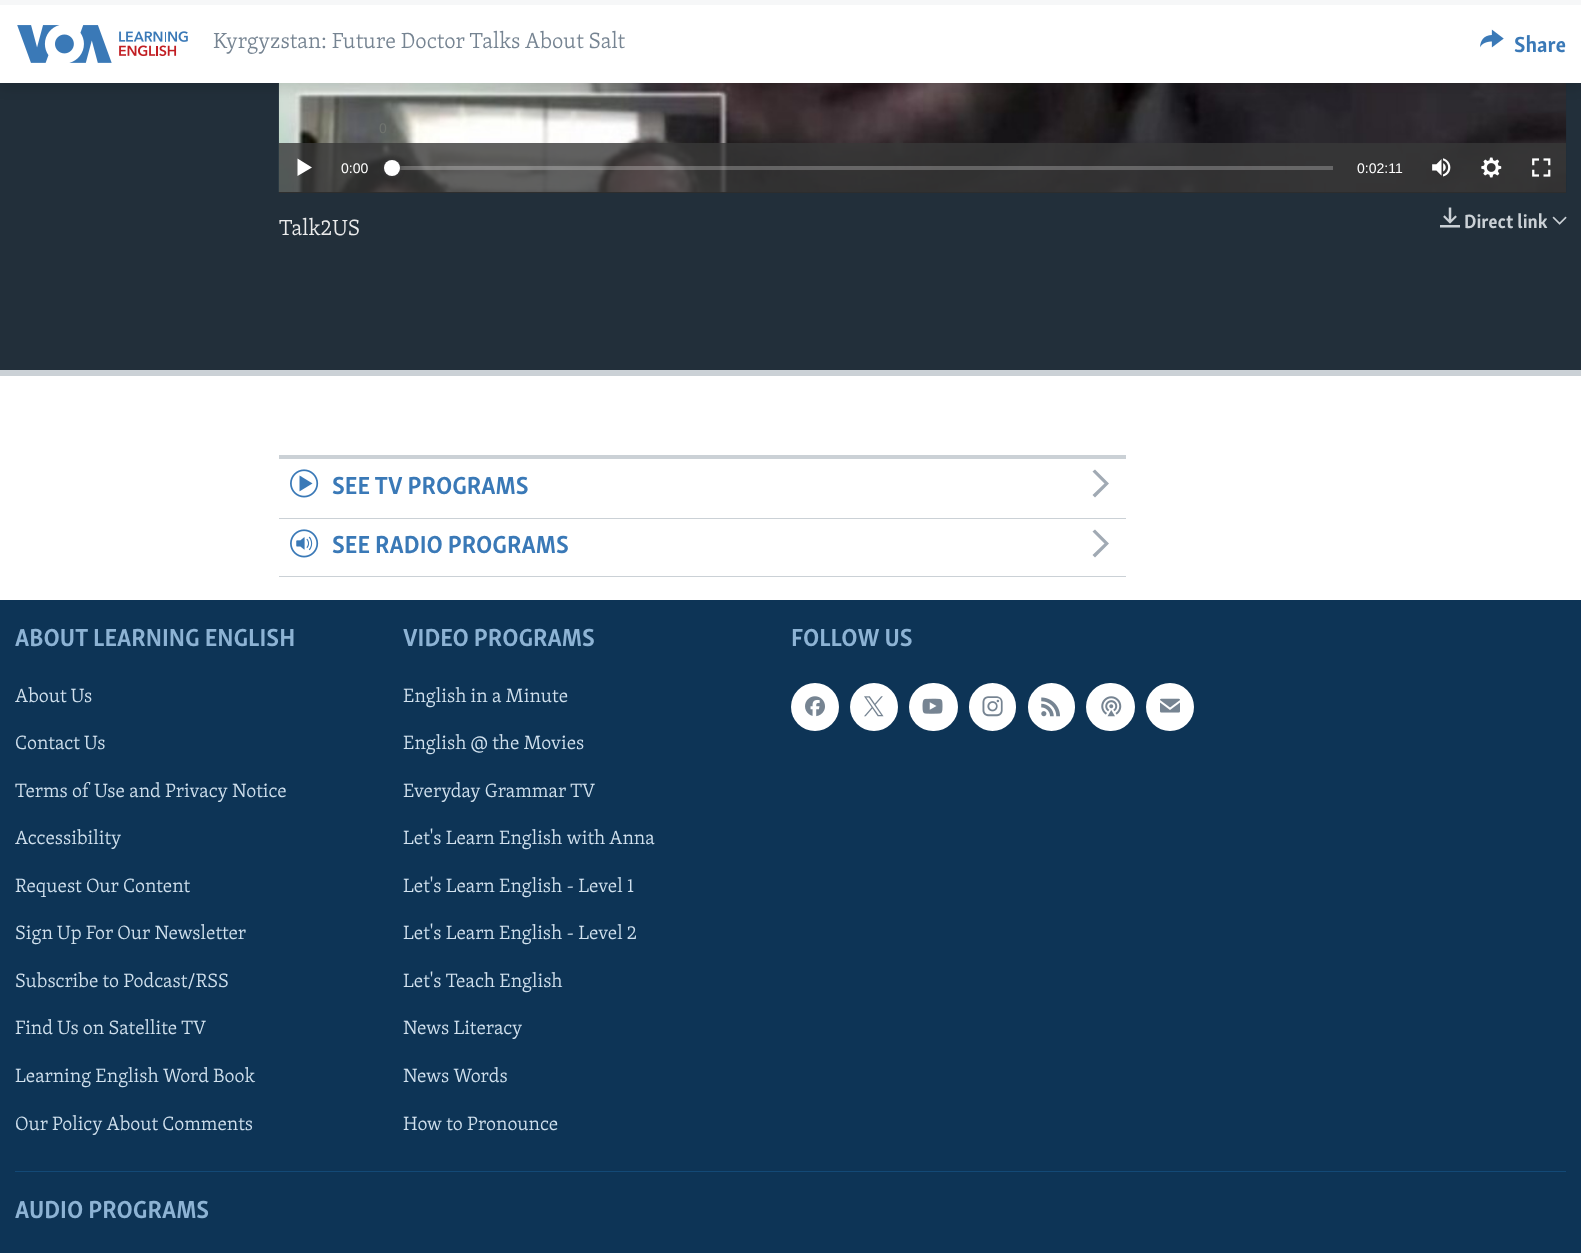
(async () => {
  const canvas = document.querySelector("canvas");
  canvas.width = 1581;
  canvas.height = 1253;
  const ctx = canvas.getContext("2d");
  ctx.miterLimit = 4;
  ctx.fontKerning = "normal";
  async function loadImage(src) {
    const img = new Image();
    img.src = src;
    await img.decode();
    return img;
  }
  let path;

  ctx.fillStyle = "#ffffff";
  ctx.fillRect(0, 0, 1581, 1253);
  ctx.fillStyle = "#222f3a";
  ctx.fillRect(0, 83, 1581, 287);
  ctx.fillStyle = "#000000";
  ctx.fillRect(279, 192, 1287, 1);
  ctx.drawImage(await loadImage("img/3.png"), 278, 83, 1289, 110);
  ctx.fillStyle = "rgba(0, 0, 0, 0.1)";
  ctx.filter = "blur(6px)";
  ctx.beginPath();
  ctx.rect(0, 6, 1581, 83);
  ctx.fill();
  ctx.filter = "none";
  ctx.fillStyle = "#ffffff";
  ctx.fillRect(0, 5, 1581, 78);
  ctx.fillStyle = "#f6f7f8";
  ctx.fillRect(0, 0, 1581, 5);
  ctx.drawImage(await loadImage("img/1.png"), 17, 25, 171, 38);
  ctx.drawImage(await loadImage("img/2.png"), 1480, 29, 24, 19);
  ctx.fillStyle = "#cbd1d6";
  ctx.fillRect(0, 370, 1581, 6);
  ctx.fillStyle = "rgba(56, 56, 56, 0.8)";
  ctx.fillRect(279, 143, 1287, 50);
  ctx.fillStyle = "#ffffff";
  path = new Path2D("M297.5 176L312 167.5L297.5 158.5Z");
  ctx.fill(path);
  ctx.fillStyle = "rgba(255, 255, 255, 0.25)";
  ctx.fillRect(393, 166, 940, 4);
  ctx.fillStyle = "#414144";
  ctx.filter = "blur(2px)";
  ctx.beginPath();
  ctx.roundRect(384, 160, 16, 16, 8);
  ctx.fill();
  ctx.filter = "none";
  ctx.fillStyle = "#ffffff";
  ctx.beginPath();
  ctx.arc(392, 168, 8, 0, Math.PI * 2);
  ctx.fill();
  ctx.drawImage(await loadImage("img/4.png"), 1432, 158, 19, 19);
  ctx.drawImage(await loadImage("img/5.png"), 1481, 157, 21, 21);
  ctx.drawImage(await loadImage("img/6.png"), 1532, 158, 19, 19);
  ctx.drawImage(await loadImage("img/7.png"), 1440, 207, 20, 21);
  ctx.drawImage(await loadImage("img/8.png"), 1552, 216, 15, 9);
  ctx.fillStyle = "#cbd1d6";
  ctx.fillRect(279, 455, 847, 4);
  ctx.fillRect(279, 518, 847, 1);
  ctx.drawImage(await loadImage("img/9.png"), 290, 469, 29, 29);
  ctx.fillStyle = "#a1aab4";
  path = new Path2D("M1095 497.5L1109 483.5L1095 469.5L1092.5 471.5L1104.5 483.5L1092.5 495Z");
  ctx.fill(path);
  ctx.fillStyle = "#cbd1d6";
  ctx.fillRect(279, 576, 847, 1);
  ctx.drawImage(await loadImage("img/10.png"), 290, 529, 29, 29);
  ctx.fillStyle = "#a1aab4";
  path = new Path2D("M1095 557.5L1109 543.5L1095 529.5L1092.5 531.5L1104.5 543.5L1092.5 555Z");
  ctx.fill(path);
  ctx.fillStyle = "#0d3456";
  ctx.fillRect(0, 600, 1581, 653);
  ctx.fillStyle = "#ffffff";
  ctx.beginPath();
  ctx.arc(815, 707, 24, 0, Math.PI * 2);
  ctx.fill();
  ctx.drawImage(await loadImage("img/11.png"), 805, 696, 20, 21);
  ctx.beginPath();
  ctx.arc(874, 707, 24, 0, Math.PI * 2);
  ctx.fill();
  ctx.drawImage(await loadImage("img/12.png"), 864, 696, 20, 21);
  ctx.beginPath();
  ctx.roundRect(909, 683, 49, 48, 24);
  ctx.fill();
  ctx.drawImage(await loadImage("img/13.png"), 922, 698, 21, 16);
  ctx.beginPath();
  ctx.roundRect(969, 683, 47, 48, 23.5);
  ctx.fill();
  ctx.drawImage(await loadImage("img/14.png"), 982, 696, 21, 21);
  ctx.beginPath();
  ctx.roundRect(1028, 683, 47, 48, 23.5);
  ctx.fill();
  ctx.drawImage(await loadImage("img/15.png"), 1041, 697, 19, 20);
  ctx.beginPath();
  ctx.roundRect(1086, 683, 49, 48, 24);
  ctx.fill();
  ctx.drawImage(await loadImage("img/16.png"), 1101, 696, 21, 21);
  ctx.beginPath();
  ctx.arc(1170, 707, 24, 0, Math.PI * 2);
  ctx.fill();
  ctx.drawImage(await loadImage("img/17.png"), 1160, 698, 20, 15);
  ctx.fillStyle = "#134976";
  ctx.fillRect(15, 1171, 1551, 1);
  ctx.font = "300 22.5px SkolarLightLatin";
  ctx.fillStyle = "#768492";
  ctx.fillText("Kyrgyzstan: Future Doctor Talks About Salt", 213, 48);
  ctx.font = "bold 22.5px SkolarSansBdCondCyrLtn";
  ctx.fillStyle = "#3a79b7";
  ctx.fillText("Share", 1514, 52);
  ctx.font = "14px Liberation Sans";
  ctx.fillStyle = "#70746f";
  ctx.fillText("0", 379, 133);
  ctx.fillStyle = "#ffffff";
  ctx.fillText("0:00", 341, 173);
  ctx.fillText("0:02:11", 1357, 173);
  ctx.font = "300 22.5px SkolarLightLatin";
  ctx.fillStyle = "#ebebeb";
  ctx.fillText("Talk2US", 279, 235);
  ctx.font = "bold 19.75px SkolarSansBdCondCyrLtn";
  ctx.fillStyle = "#cbd1d6";
  ctx.fillText("Direct link", 1464, 228);
  ctx.font = "bold 25.25px SkolarSansBdCondCyrLtn";
  ctx.fillStyle = "#3a79b7";
  ctx.fillText("SEE TV PROGRAMS", 332, 494);
  ctx.fillText("SEE RADIO PROGRAMS", 332, 553);
  ctx.fillStyle = "#8db3d4";
  ctx.fillText("ABOUT LEARNING ENGLISH", 15, 646);
  ctx.font = "300 19.75px SkolarLightLatin";
  ctx.fillStyle = "#d1e1ee";
  for (const [text, x, y] of [
    ["About Us", 15, 702],
    ["Contact Us", 15, 749],
    ["Terms of Use and Privacy Notice", 15, 797],
    ["Accessibility", 15, 844],
    ["Request Our Content", 15, 892],
    ["Sign Up For Our Newsletter", 15, 939],
    ["Subscribe to Podcast/RSS", 15, 987],
    ["Find Us on Satellite TV", 15, 1034],
    ["Learning English Word Book", 15, 1082],
    ["Our Policy About Comments", 15, 1130],
  ]) {
    ctx.fillText(text, x, y);
  }
  ctx.font = "bold 25.25px SkolarSansBdCondCyrLtn";
  ctx.fillStyle = "#8db3d4";
  ctx.fillText("VIDEO PROGRAMS", 403, 646);
  ctx.font = "300 19.75px SkolarLightLatin";
  ctx.fillStyle = "#d1e1ee";
  for (const [text, x, y] of [
    ["English in a Minute", 403, 702],
    ["English @ the Movies", 403, 749],
    ["Everyday Grammar TV", 403, 797],
    ["Let's Learn English with Anna", 403, 844],
    ["Let's Learn English - Level 1", 403, 892],
    ["Let's Learn English - Level 2", 403, 939],
    ["Let's Teach English", 403, 987],
    ["News Literacy", 403, 1034],
    ["News Words", 403, 1082],
    ["How to Pronounce", 403, 1130],
  ]) {
    ctx.fillText(text, x, y);
  }
  ctx.font = "bold 25.25px SkolarSansBdCondCyrLtn";
  ctx.fillStyle = "#8db3d4";
  ctx.fillText("FOLLOW US", 791, 646);
  ctx.fillText("AUDIO PROGRAMS", 15, 1218);
})();
